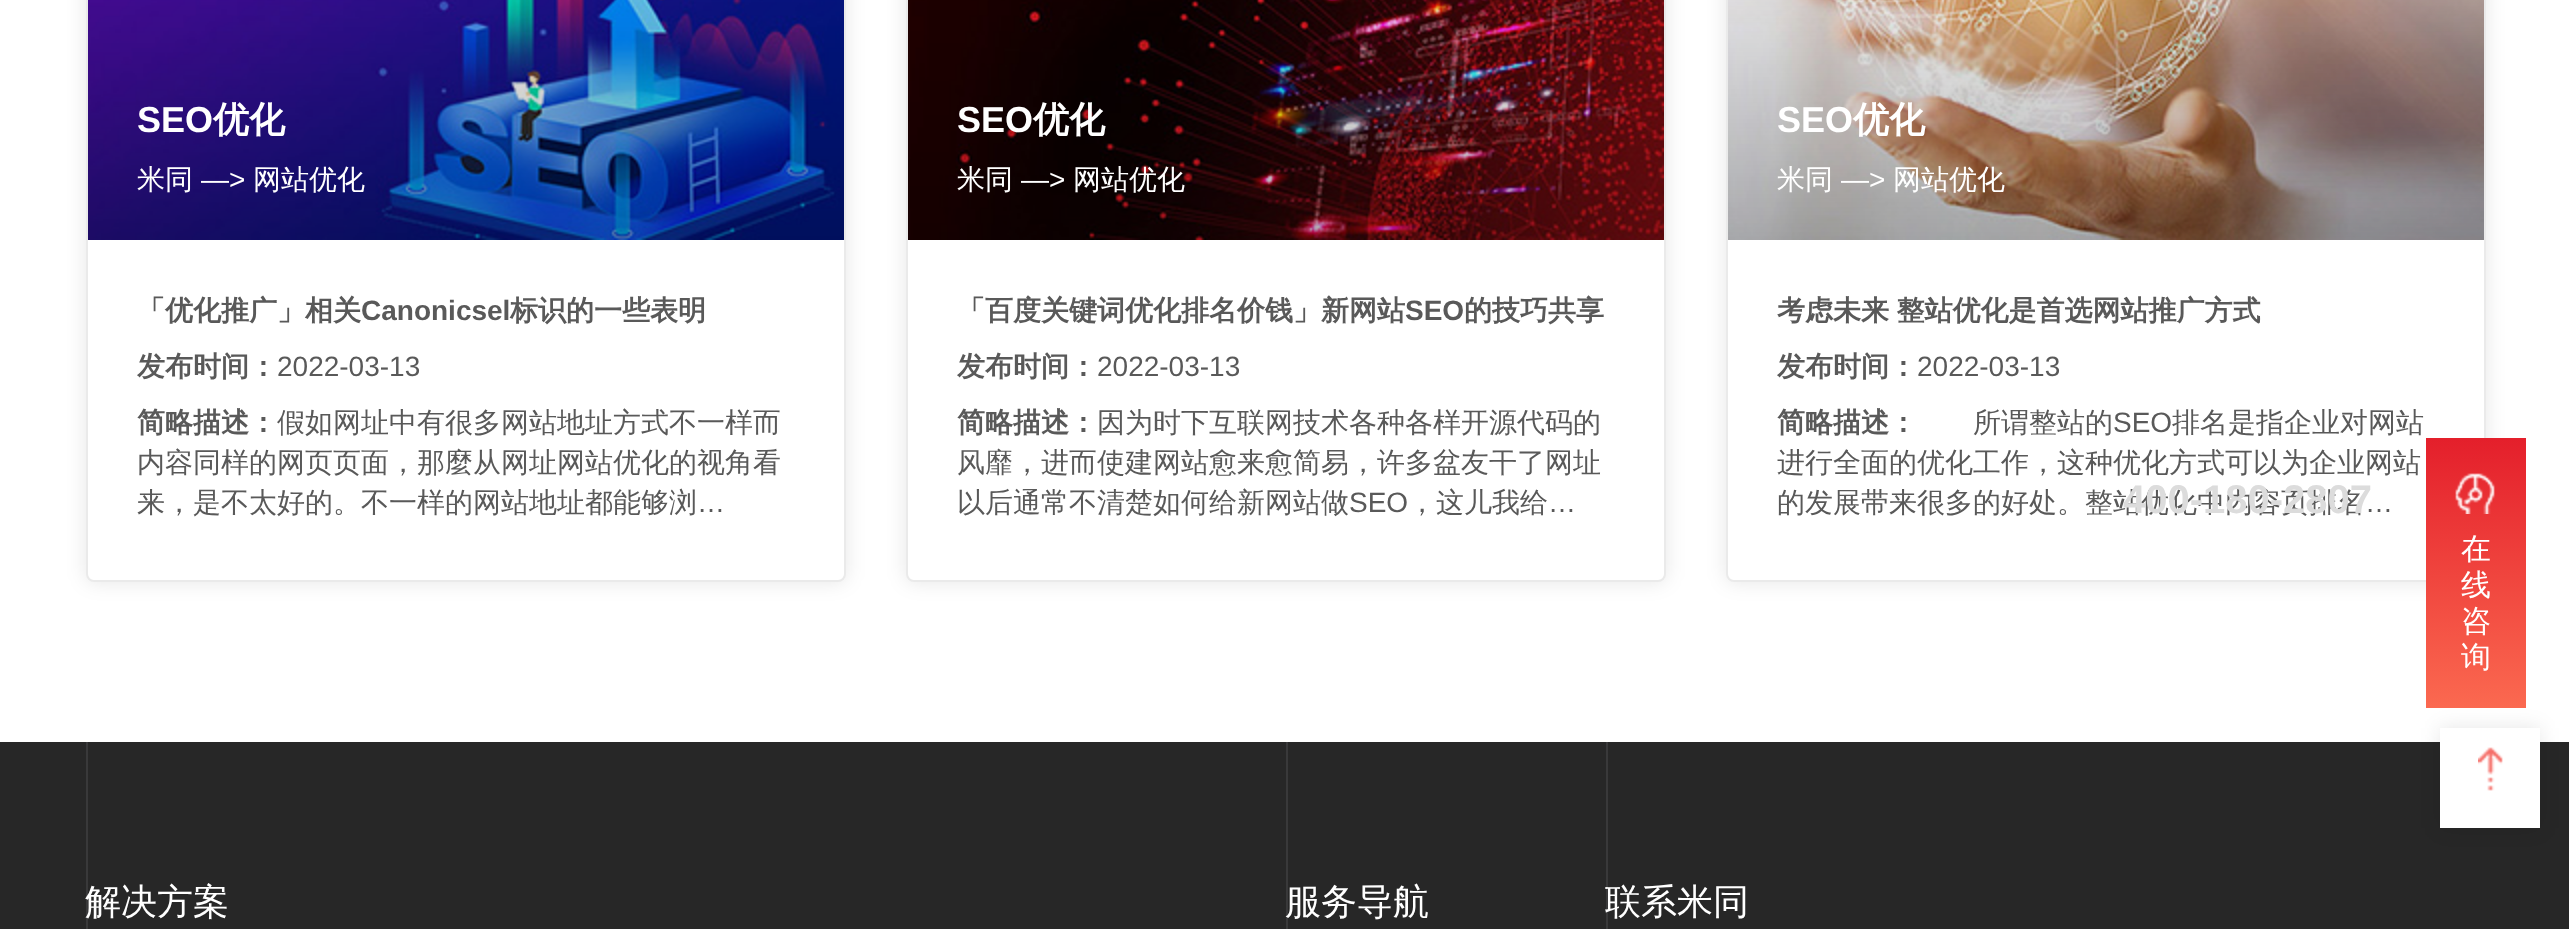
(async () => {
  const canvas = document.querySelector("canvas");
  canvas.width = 2569;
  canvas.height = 929;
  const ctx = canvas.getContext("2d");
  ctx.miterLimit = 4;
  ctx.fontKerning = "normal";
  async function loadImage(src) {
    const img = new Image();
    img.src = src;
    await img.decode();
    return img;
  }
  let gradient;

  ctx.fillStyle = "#ffffff";
  ctx.fillRect(0, 0, 2569, 929);
  ctx.fillStyle = "rgba(0, 0, 0, 0.1)";
  ctx.filter = "blur(10px)";
  ctx.beginPath();
  ctx.roundRect(86, -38, 760, 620, 8);
  ctx.fill();
  ctx.filter = "none";
  ctx.fillStyle = "#ffffff";
  ctx.beginPath();
  ctx.roundRect(87, -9, 758, 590, 7);
  ctx.fill();
  ctx.strokeStyle = "#eaeaea";
  ctx.lineWidth = 2;
  ctx.stroke();
  ctx.drawImage(await loadImage("img/1.png"), 88, 0, 756, 240);
  ctx.fillStyle = "rgba(0, 0, 0, 0.1)";
  ctx.filter = "blur(10px)";
  ctx.beginPath();
  ctx.roundRect(906, -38, 760, 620, 8);
  ctx.fill();
  ctx.filter = "none";
  ctx.fillStyle = "#ffffff";
  ctx.beginPath();
  ctx.roundRect(907, -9, 758, 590, 7);
  ctx.fill();
  ctx.stroke();
  ctx.drawImage(await loadImage("img/2.png"), 908, 0, 756, 240);
  ctx.fillStyle = "rgba(0, 0, 0, 0.1)";
  ctx.filter = "blur(10px)";
  ctx.beginPath();
  ctx.roundRect(1726, -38, 760, 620, 8);
  ctx.fill();
  ctx.filter = "none";
  ctx.fillStyle = "#ffffff";
  ctx.beginPath();
  ctx.roundRect(1727, -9, 758, 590, 7);
  ctx.fill();
  ctx.stroke();
  ctx.drawImage(await loadImage("img/3.png"), 1728, 0, 756, 240);
  ctx.fillStyle = "#272727";
  ctx.fillRect(0, 742, 2569, 187);
  ctx.fillStyle = "rgba(0, 0, 0, 0.1)";
  ctx.filter = "blur(10px)";
  ctx.beginPath();
  ctx.rect(2440, 728, 100, 100);
  ctx.fill();
  ctx.filter = "none";
  gradient = ctx.createLinearGradient(2476, 438, 2476, 708);
  gradient.addColorStop(0, "#e41f2b");
  gradient.addColorStop(1, "#fb6950");
  ctx.fillStyle = gradient;
  ctx.fillRect(2426, 438, 100, 270);
  ctx.drawImage(await loadImage("img/4.png"), 2455, 473, 40, 41);
  ctx.fillStyle = "#ffffff";
  ctx.fillRect(2440, 728, 100, 100);
  ctx.drawImage(await loadImage("img/5.png"), 2478, 747, 25, 44);
  for (const [x, y, w, h, color] of [
    [86, 742, 2, 187, "rgba(213, 216, 223, 0.1)"],
    [1286, 742, 2, 187, "rgba(213, 216, 223, 0.1)"],
    [1606, 742, 2, 187, "rgba(213, 216, 223, 0.1)"],
  ]) {
    ctx.fillStyle = color;
    ctx.fillRect(x, y, w, h);
  }
  ctx.font = "bold 36px Liberation Sans";
  ctx.fillStyle = "#ffffff";
  ctx.fillText("SEO", 137, 132);
  ctx.font = "bold 36px WenQuanYi Zen Hei";
  ctx.fillText("优化", 213, 132);
  ctx.font = "500 28px WenQuanYi Zen Hei";
  ctx.fillText("米同", 137, 189);
  ctx.font = "28px Liberation Sans";
  ctx.fillText("—>", 201, 189);
  ctx.font = "500 28px WenQuanYi Zen Hei";
  ctx.fillText("网站优化", 253, 189);
  ctx.font = "bold 28px WenQuanYi Zen Hei";
  ctx.fillStyle = "#595959";
  ctx.fillText("「优化推广」相关", 137, 320);
  ctx.font = "bold 28px Liberation Sans";
  ctx.fillText("Canonicsel", 361, 320);
  ctx.font = "bold 28px WenQuanYi Zen Hei";
  ctx.fillText("标识的一些表明", 510, 320);
  ctx.fillText("发布时间：", 137, 376);
  ctx.font = "28px Liberation Sans";
  ctx.fillText("2022-03-13", 277, 376);
  ctx.font = "bold 28px WenQuanYi Zen Hei";
  ctx.fillText("简略描述：", 137, 432);
  ctx.font = "500 28px WenQuanYi Zen Hei";
  for (const [text, x, y] of [
    ["假如网址中有很多网站地址方式不一样而", 277, 432],
    ["内容同样的网页页面，那麼从网址网站优化的视角看", 137, 472],
    ["来，是不太好的。不一样的网站地址都能够浏", 137, 512],
  ]) {
    ctx.fillText(text, x, y);
  }
  ctx.font = "28px Liberation Sans";
  ctx.fillText("…", 697, 512);
  ctx.font = "bold 36px Liberation Sans";
  ctx.fillStyle = "#ffffff";
  ctx.fillText("SEO", 957, 132);
  ctx.font = "bold 36px WenQuanYi Zen Hei";
  ctx.fillText("优化", 1033, 132);
  ctx.font = "500 28px WenQuanYi Zen Hei";
  ctx.fillText("米同", 957, 189);
  ctx.font = "28px Liberation Sans";
  ctx.fillText("—>", 1021, 189);
  ctx.font = "500 28px WenQuanYi Zen Hei";
  ctx.fillText("网站优化", 1073, 189);
  ctx.font = "bold 28px WenQuanYi Zen Hei";
  ctx.fillStyle = "#595959";
  ctx.fillText("「百度关键词优化排名价钱」新网站", 957, 320);
  ctx.font = "bold 28px Liberation Sans";
  ctx.fillText("SEO", 1405, 320);
  ctx.font = "bold 28px WenQuanYi Zen Hei";
  ctx.fillText("的技巧共享", 1464, 320);
  ctx.fillText("发布时间：", 957, 376);
  ctx.font = "28px Liberation Sans";
  ctx.fillText("2022-03-13", 1097, 376);
  ctx.font = "bold 28px WenQuanYi Zen Hei";
  ctx.fillText("简略描述：", 957, 432);
  ctx.font = "500 28px WenQuanYi Zen Hei";
  for (const [text, x, y] of [
    ["因为时下互联网技术各种各样开源代码的", 1097, 432],
    ["风靡，进而使建网站愈来愈简易，许多盆友干了网址", 957, 472],
    ["以后通常不清楚如何给新网站做", 957, 512],
  ]) {
    ctx.fillText(text, x, y);
  }
  ctx.font = "28px Liberation Sans";
  ctx.fillText("SEO", 1349, 512);
  ctx.font = "500 28px WenQuanYi Zen Hei";
  ctx.fillText("，这儿我给", 1408, 512);
  ctx.font = "28px Liberation Sans";
  ctx.fillText("…", 1548, 512);
  ctx.font = "bold 36px Liberation Sans";
  ctx.fillStyle = "#ffffff";
  ctx.fillText("SEO", 1777, 132);
  ctx.font = "bold 36px WenQuanYi Zen Hei";
  ctx.fillText("优化", 1853, 132);
  ctx.font = "500 28px WenQuanYi Zen Hei";
  ctx.fillText("米同", 1777, 189);
  ctx.font = "28px Liberation Sans";
  ctx.fillText("—>", 1841, 189);
  ctx.font = "500 28px WenQuanYi Zen Hei";
  ctx.fillText("网站优化", 1893, 189);
  ctx.wordSpacing = "-1px";
  ctx.font = "bold 28px WenQuanYi Zen Hei";
  ctx.fillStyle = "#595959";
  ctx.fillText("考虑未来 整站优化是首选网站推广方式", 1777, 320);
  ctx.wordSpacing = "0px";
  ctx.fillText("发布时间：", 1777, 376);
  ctx.font = "28px Liberation Sans";
  ctx.fillText("2022-03-13", 1917, 376);
  ctx.font = "bold 28px WenQuanYi Zen Hei";
  ctx.fillText("简略描述：", 1777, 432);
  ctx.font = "500 28px WenQuanYi Zen Hei";
  ctx.fillText("所谓整站的", 1973, 432);
  ctx.font = "28px Liberation Sans";
  ctx.fillText("SEO", 2113, 432);
  ctx.font = "500 28px WenQuanYi Zen Hei";
  for (const [text, x, y] of [
    ["排名是指企业对网站", 2172, 432],
    ["进行全面的优化工作，这种优化方式可以为企业网站", 1777, 472],
    ["的发展带来很多的好处。整站优化中内容页排名", 1777, 512],
  ]) {
    ctx.fillText(text, x, y);
  }
  ctx.font = "28px Liberation Sans";
  ctx.fillText("…", 2365, 512);
  ctx.font = "bold 40px Liberation Sans";
  ctx.fillStyle = "#dcdcdc";
  ctx.fillText("400-180-2807", 2123, 513);
  ctx.font = "500 30px WenQuanYi Zen Hei";
  ctx.fillStyle = "#ffffff";
  for (const [text, x, y] of [
    ["在", 2461, 559],
    ["线", 2461, 595],
    ["咨", 2461, 631],
    ["询", 2461, 667],
  ]) {
    ctx.fillText(text, x, y);
  }
  ctx.font = "500 36px WenQuanYi Zen Hei";
  for (const [text, x, y] of [
    ["解决方案", 85, 914],
    ["服务导航", 1285, 914],
    ["联系米同", 1605, 914],
  ]) {
    ctx.fillText(text, x, y);
  }
})();
